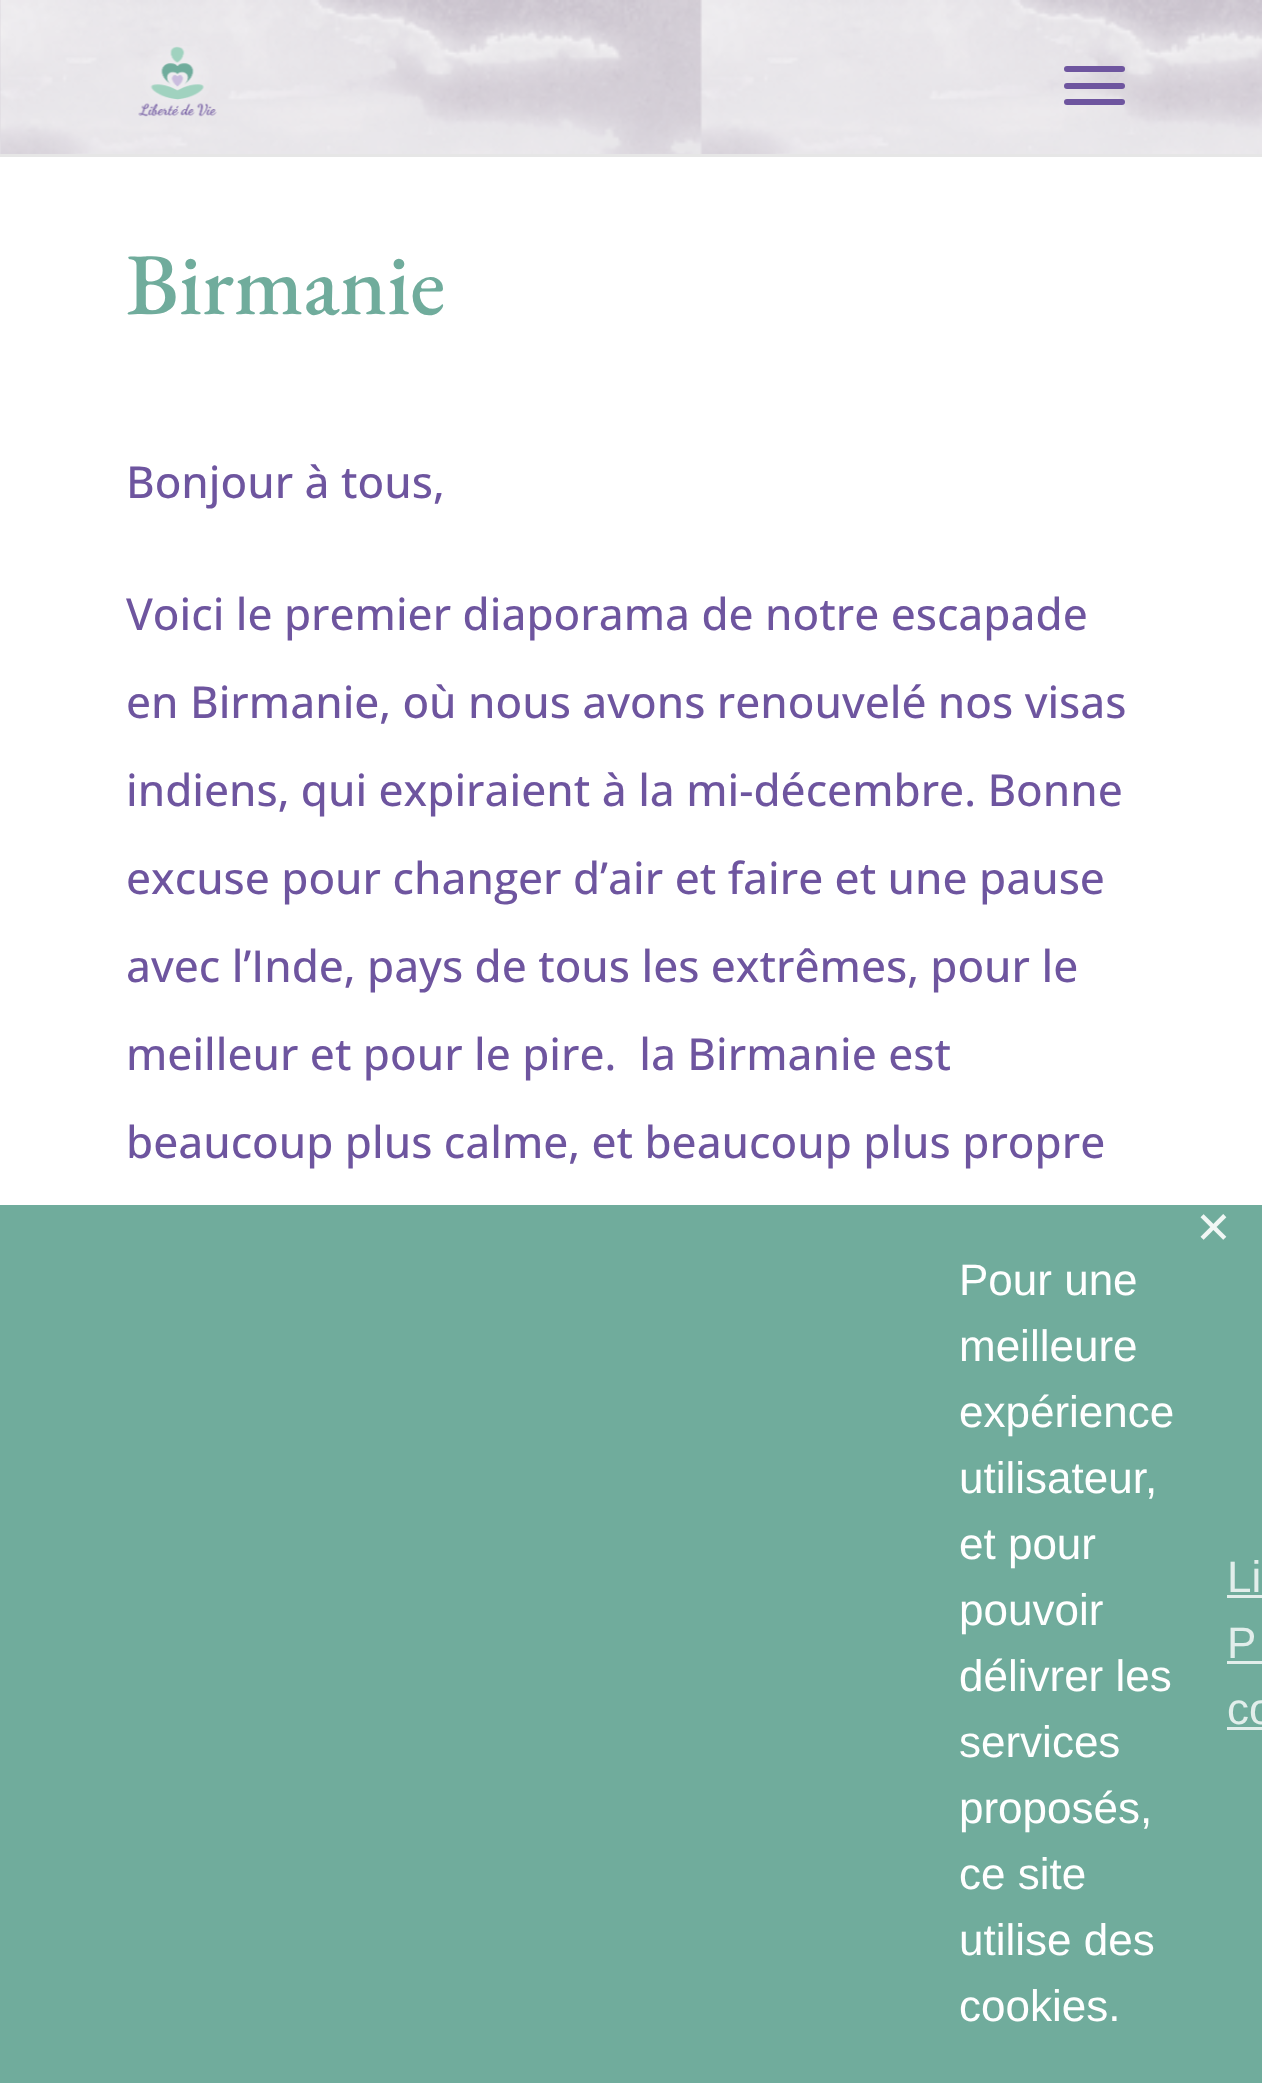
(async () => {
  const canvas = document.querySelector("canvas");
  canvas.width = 1262;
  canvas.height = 2083;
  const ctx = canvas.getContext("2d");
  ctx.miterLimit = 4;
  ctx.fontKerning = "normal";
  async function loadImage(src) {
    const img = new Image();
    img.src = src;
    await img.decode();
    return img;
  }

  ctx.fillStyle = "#ffffff";
  ctx.fillRect(0, 0, 1262, 2083);
  ctx.fillStyle = "#e6e6e6";
  ctx.fillRect(0, 154, 1262, 3);
  ctx.drawImage(await loadImage("img/1.png"), 0, 0, 1262, 154);
  ctx.drawImage(await loadImage("img/2.png"), 138, 46, 79, 71);
  ctx.fillStyle = "#6e559f";
  ctx.beginPath();
  ctx.roundRect(1064, 66, 61, 6, 3);
  ctx.fill();
  ctx.beginPath();
  ctx.roundRect(1064, 83, 61, 6, 3);
  ctx.fill();
  ctx.beginPath();
  ctx.roundRect(1064, 99, 61, 6, 3);
  ctx.fill();
  for (const [x, y, w, h, color] of [
    [0, 1205, 1262, 878, "#70ac9c"],
    [1227, 1595, 35, 3, "#e2eeeb"],
    [1227, 1661, 35, 3, "#e2eeeb"],
    [1227, 1727, 35, 3, "#e2eeeb"],
  ]) {
    ctx.fillStyle = color;
    ctx.fillRect(x, y, w, h);
  }
  ctx.font = "500 88px EB Garamond";
  ctx.fillStyle = "#70ac9c";
  ctx.fillText("Birmanie", 126, 314);
  ctx.font = "500 44px Open Sans";
  ctx.fillStyle = "#6e559f";
  for (const [text, x, y] of [
    ["Bonjour à tous,", 126, 498],
    ["Voici le premier diaporama de notre escapade", 126, 630],
    ["en Birmanie, où nous avons renouvelé nos visas", 126, 718],
    ["indiens, qui expiraient à la mi-décembre. Bonne", 126, 806],
    ["excuse pour changer d’air et faire et une pause", 126, 894],
    ["avec l’Inde, pays de tous les extrêmes, pour le", 126, 982],
    ["meilleur et pour le pire.  la Birmanie est", 126, 1070],
    ["beaucoup plus calme, et beaucoup plus propre", 126, 1158],
  ]) {
    ctx.fillText(text, x, y);
  }
  ctx.font = "44px DejaVu Sans";
  ctx.fillStyle = "#f1f7f5";
  ctx.fillText("✕", 1195, 1243);
  ctx.font = "44px Liberation Sans";
  ctx.fillStyle = "#ffffff";
  for (const [text, x, y] of [
    ["Pour une", 959, 1295],
    ["meilleure", 959, 1361],
    ["expérience", 959, 1427],
    ["utilisateur,", 959, 1493],
    ["et pour", 959, 1559],
    ["pouvoir", 959, 1625],
    ["délivrer les", 959, 1691],
    ["services", 959, 1757],
    ["proposés,", 959, 1823],
    ["ce site", 959, 1889],
    ["utilise des", 959, 1955],
    ["cookies.", 959, 2021],
  ]) {
    ctx.fillText(text, x, y);
  }
  ctx.fillStyle = "#e2eeeb";
  for (const [text, x, y] of [
    ["Li", 1227, 1592],
    ["P", 1227, 1658],
    ["co", 1227, 1724],
  ]) {
    ctx.fillText(text, x, y);
  }
})();
